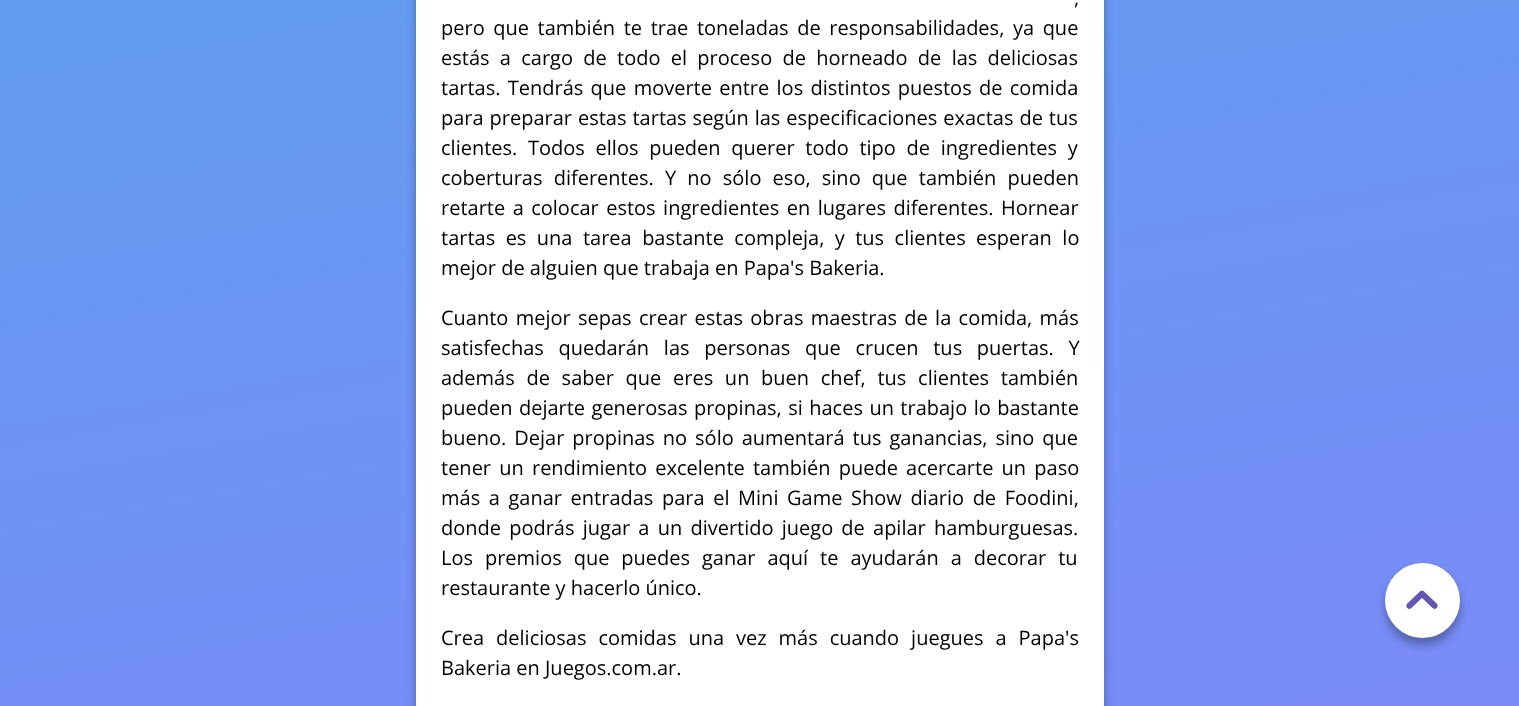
(async () => {
  const canvas = document.querySelector("canvas");
  canvas.width = 1519;
  canvas.height = 706;
  const ctx = canvas.getContext("2d");
  ctx.miterLimit = 4;
  ctx.fontKerning = "normal";
  async function loadImage(src) {
    const img = new Image();
    img.src = src;
    await img.decode();
    return img;
  }
  let gradient;

  ctx.fillStyle = "#ffffff";
  ctx.fillRect(0, 0, 1519, 706);
  gradient = ctx.createLinearGradient(385, -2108, 1135, 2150);
  gradient.addColorStop(0, "#31c3e7");
  gradient.addColorStop(0.85, "#8c7dfb");
  gradient.addColorStop(1, "#6356b1");
  ctx.fillStyle = gradient;
  ctx.fillRect(0, 0, 1519, 706);
  ctx.fillStyle = "rgba(0, 0, 0, 0.3)";
  ctx.filter = "blur(5px)";
  ctx.beginPath();
  ctx.roundRect(416, -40, 688, 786, 25);
  ctx.fill();
  ctx.filter = "none";
  ctx.fillStyle = "#ffffff";
  ctx.fillRect(416, 0, 688, 706);
  ctx.fillStyle = "rgba(0, 0, 0, 0.3)";
  ctx.filter = "blur(5px)";
  ctx.beginPath();
  ctx.roundRect(1385, 570, 75, 75, 37.5);
  ctx.fill();
  ctx.filter = "none";
  ctx.fillStyle = "#ffffff";
  ctx.beginPath();
  ctx.arc(1422.5, 600.5, 37.5, 0, Math.PI * 2);
  ctx.fill();
  ctx.drawImage(await loadImage("img/1.png"), 1406, 590, 32, 19);
  ctx.wordSpacing = "1px";
  ctx.font = "20px Open Sans";
  ctx.fillStyle = "#000000";
  ctx.fillText(",", 1074, 5);
  ctx.wordSpacing = "3.4px";
  ctx.fillText("pero que también te trae toneladas de responsabilidades, ya que", 441, 35);
  ctx.wordSpacing = "5.1px";
  ctx.fillText("estás a cargo de todo el proceso de horneado de las deliciosas", 441, 65);
  ctx.wordSpacing = "2.1px";
  ctx.fillText("tartas. Tendrás que moverte entre los distintos puestos de comida", 441, 95);
  ctx.wordSpacing = "0.75px";
  ctx.fillText("para preparar estas tartas según las especificaciones exactas de tus", 441, 125);
  ctx.wordSpacing = "5.5px";
  ctx.fillText("clientes. Todos ellos pueden querer todo tipo de ingredientes y", 441, 155);
  ctx.wordSpacing = "6px";
  ctx.fillText("coberturas diferentes. Y no sólo eso, sino que también pueden", 441, 185);
  ctx.wordSpacing = "2.25px";
  ctx.fillText("retarte a colocar estos ingredientes en lugares diferentes. Hornear", 441, 215);
  ctx.wordSpacing = "5.25px";
  ctx.fillText("tartas es una tarea bastante compleja, y tus clientes esperan lo", 441, 245);
  ctx.wordSpacing = "0px";
  ctx.fillText("mejor de alguien que trabaja en Papa's Bakeria.", 441, 275);
  ctx.wordSpacing = "2.1px";
  ctx.fillText("Cuanto mejor sepas crear estas obras maestras de la comida, más", 441, 325);
  ctx.wordSpacing = "9.5px";
  ctx.fillText("satisfechas quedarán las personas que crucen tus puertas. Y", 441, 355);
  ctx.wordSpacing = "6.5px";
  ctx.fillText("además de saber que eres un buen chef, tus clientes también", 441, 385);
  ctx.wordSpacing = "1.25px";
  ctx.fillText("pueden dejarte generosas propinas, si haces un trabajo lo bastante", 441, 415);
  ctx.wordSpacing = "2.75px";
  ctx.fillText("bueno. Dejar propinas no sólo aumentará tus ganancias, sino que", 441, 445);
  ctx.wordSpacing = "3px";
  ctx.fillText("tener un rendimiento excelente también puede acercarte un paso", 441, 475);
  ctx.wordSpacing = "3.4px";
  ctx.fillText("más a ganar entradas para el Mini Game Show diario de Foodini,", 441, 505);
  ctx.wordSpacing = "3px";
  ctx.fillText("donde podrás jugar a un divertido juego de apilar hamburguesas.", 441, 535);
  ctx.wordSpacing = "6.75px";
  ctx.fillText("Los premios que puedes ganar aquí te ayudarán a decorar tu", 441, 565);
  ctx.wordSpacing = "0px";
  ctx.fillText("restaurante y hacerlo único.", 441, 595);
  ctx.wordSpacing = "6.75px";
  ctx.fillText("Crea deliciosas comidas una vez más cuando juegues a Papa's", 441, 645);
  ctx.wordSpacing = "0px";
  ctx.fillText("Bakeria en Juegos.com.ar.", 441, 675);
})();
